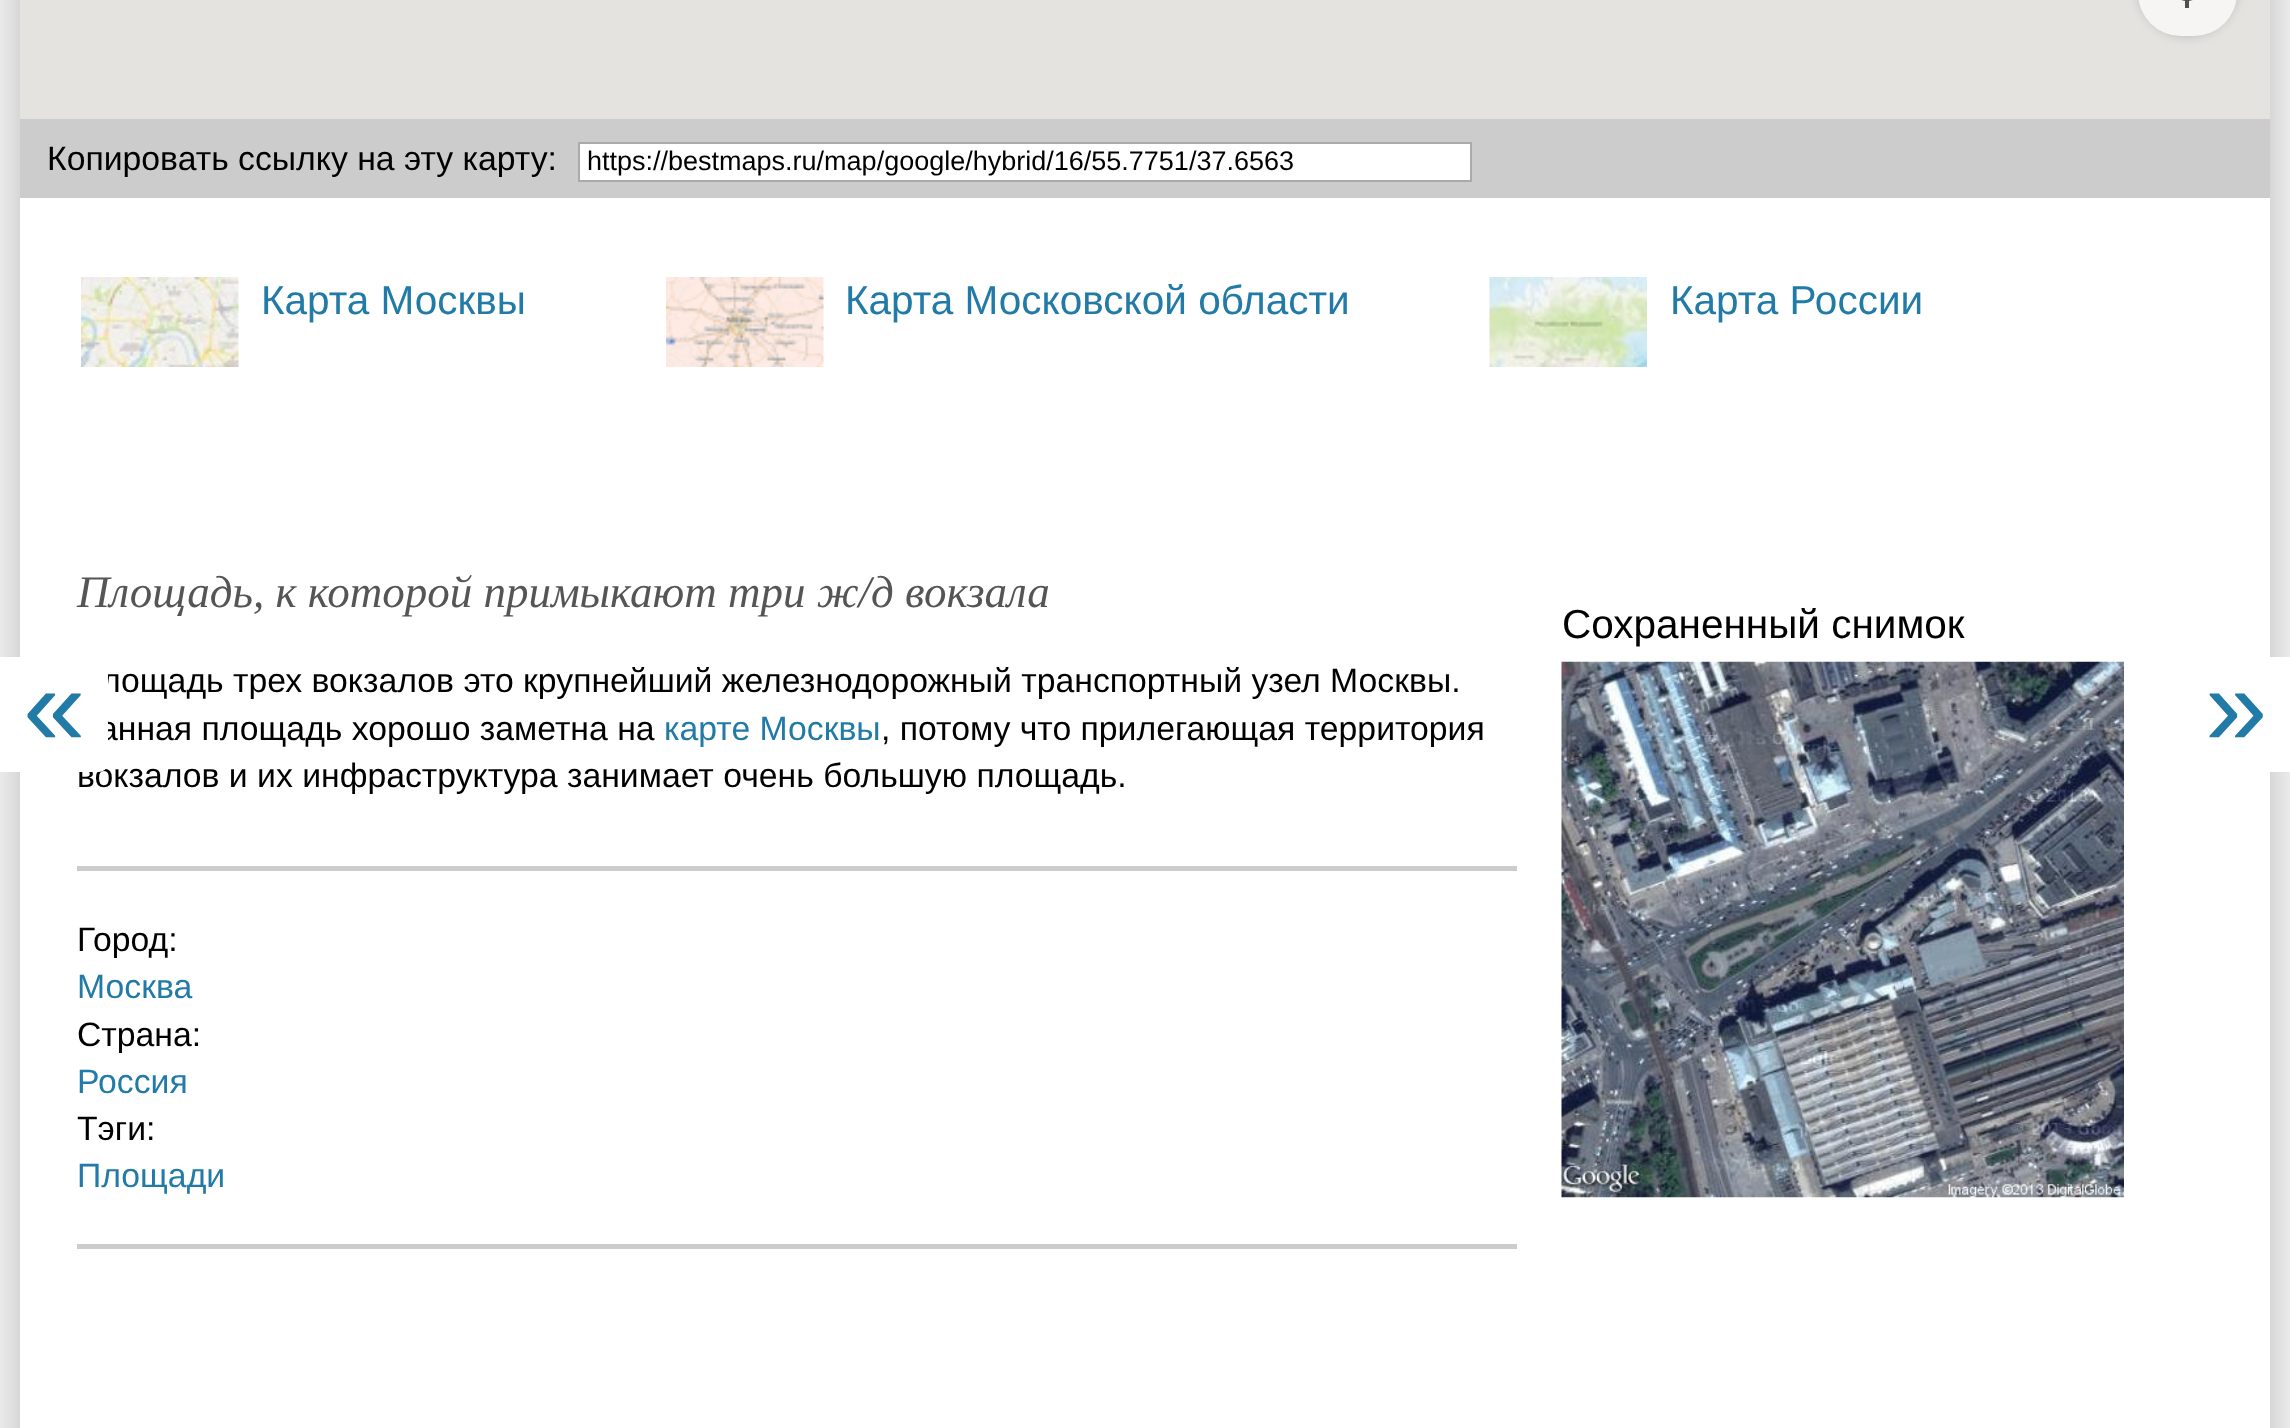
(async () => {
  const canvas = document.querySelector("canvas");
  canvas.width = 2290;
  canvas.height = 1428;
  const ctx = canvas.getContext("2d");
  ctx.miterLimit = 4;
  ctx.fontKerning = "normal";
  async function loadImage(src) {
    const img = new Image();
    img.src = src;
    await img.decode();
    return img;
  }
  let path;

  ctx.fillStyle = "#efefef";
  ctx.fillRect(0, 0, 2290, 1428);
  ctx.fillStyle = "rgba(0, 0, 0, 0.2)";
  ctx.filter = "blur(17px)";
  ctx.beginPath();
  ctx.rect(20, -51, 2250, 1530);
  ctx.fill();
  ctx.filter = "none";
  ctx.fillStyle = "#ffffff";
  ctx.fillRect(20, 198, 2250, 1230);
  ctx.fillStyle = "#e5e3df";
  ctx.fillRect(20, 0, 2250, 119);
  ctx.fillStyle = "rgba(80, 79, 78, 0.3)";
  ctx.filter = "blur(5.5px)";
  ctx.beginPath();
  ctx.roundRect(2138, -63, 99, 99, 49.5);
  ctx.fill();
  ctx.filter = "none";
  ctx.fillStyle = "#f6f5f4";
  ctx.beginPath();
  ctx.roundRect(2138, -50, 99, 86, 49.5);
  ctx.fill();
  ctx.beginPath();
  ctx.arc(2187, -13.5, 13, 0, Math.PI * 2);
  ctx.strokeStyle = "#504f4e";
  ctx.lineWidth = 3.3;
  ctx.stroke();
  ctx.fillStyle = "#504f4e";
  ctx.fillRect(2185, 0, 4, 8);
  ctx.fillStyle = "#cccccc";
  ctx.fillRect(20, 119, 2250, 79);
  ctx.fillStyle = "#ffffff";
  ctx.beginPath();
  ctx.rect(579, 143, 892, 38);
  ctx.fill();
  ctx.strokeStyle = "#aaaaaa";
  ctx.lineWidth = 2;
  ctx.stroke();
  ctx.drawImage(await loadImage("img/1.png"), 81, 277, 158, 90);
  ctx.drawImage(await loadImage("img/2.png"), 666, 277, 158, 90);
  ctx.drawImage(await loadImage("img/3.png"), 1489, 277, 158, 90);
  ctx.fillStyle = "#cccccc";
  ctx.fillRect(77, 866, 1440, 5);
  ctx.fillRect(77, 1244, 1440, 5);
  ctx.drawImage(await loadImage("img/4.png"), 1561, 661, 563, 537);
  ctx.fillStyle = "#ffffff";
  path = new Path2D("M2192 657H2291V772H2192C2187 772 2183 768 2183 763V666C2183 661 2187 657 2192 657Z");
  ctx.fill(path);
  ctx.font = "33.75px Liberation Sans";
  ctx.fillStyle = "#000000";
  ctx.fillText("Копировать ссылку на эту карту:", 47, 170);
  ctx.font = "27px Liberation Sans";
  ctx.fillText("https://bestmaps.ru/map/google/hybrid/16/55.7751/37.6563", 587, 170);
  ctx.font = "40.5px Liberation Sans";
  ctx.fillStyle = "#227aa7";
  for (const [text, x, y] of [
    ["Карта Москвы", 261, 314],
    ["Карта Московской области", 845, 314],
    ["Карта России", 1670, 314],
  ]) {
    ctx.fillText(text, x, y);
  }
  ctx.font = "italic 45px Liberation Serif";
  ctx.fillStyle = "#555555";
  ctx.fillText("Площадь, к которой примыкают три ж/д вокзала", 77, 607);
  ctx.font = "33.75px Liberation Sans";
  ctx.fillStyle = "#000000";
  ctx.fillText("лощадь трех вокзалов это крупнейший железнодорожный транспортный узел Москвы.", 101, 692);
  ctx.fillText("анная площадь хорошо заметна на", 99, 740);
  ctx.fillStyle = "#227aa7";
  ctx.fillText("карте Москвы", 664, 740);
  ctx.fillStyle = "#000000";
  for (const [text, x, y] of [
    [", потому что прилегающая территория", 881, 740],
    ["вокзалов и их инфраструктура занимает очень большую площадь.", 77, 787],
    ["Город:", 77, 951],
  ]) {
    ctx.fillText(text, x, y);
  }
  ctx.fillStyle = "#227aa7";
  ctx.fillText("Москва", 77, 998);
  ctx.fillStyle = "#000000";
  ctx.fillText("Страна:", 77, 1046);
  ctx.fillStyle = "#227aa7";
  ctx.fillText("Россия", 77, 1093);
  ctx.fillStyle = "#000000";
  ctx.fillText("Тэги:", 77, 1140);
  ctx.fillStyle = "#227aa7";
  ctx.fillText("Площади", 77, 1187);
  ctx.font = "40.5px Liberation Sans";
  ctx.fillStyle = "#000000";
  ctx.fillText("Сохраненный снимок", 1562, 638);
  ctx.fillStyle = "#ffffff";
  ctx.beginPath();
  ctx.roundRect(0, 657, 108, 115, [0, 9, 9, 0]);
  ctx.fill();
  ctx.font = "112px Liberation Sans";
  ctx.fillStyle = "#227aa7";
  ctx.fillText("«", 23, 745);
  ctx.fillText("»", 2205, 745);
})();
